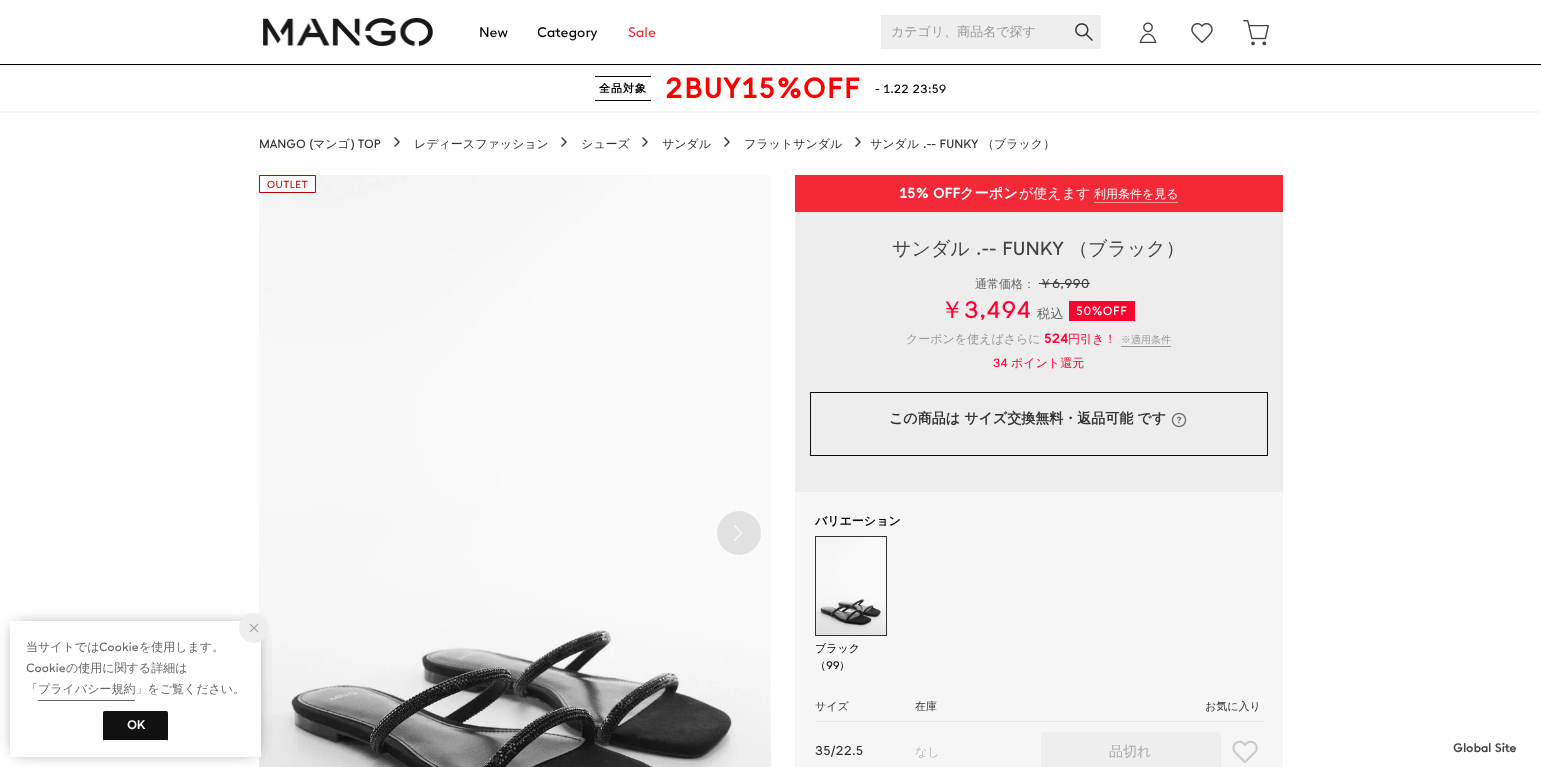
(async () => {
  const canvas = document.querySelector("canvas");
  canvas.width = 1541;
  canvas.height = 767;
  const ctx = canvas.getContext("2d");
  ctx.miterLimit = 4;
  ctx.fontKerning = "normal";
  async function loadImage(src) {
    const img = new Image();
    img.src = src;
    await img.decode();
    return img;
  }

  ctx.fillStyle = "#ffffff";
  ctx.fillRect(0, 0, 1541, 767);
  ctx.fillStyle = "#000000";
  ctx.fillRect(0, 64, 1541, 1);
  ctx.drawImage(await loadImage("img/1.png"), 263, 18, 170, 28);
  ctx.fillStyle = "#eeeeee";
  ctx.fillRect(881, 15, 220, 34);
  ctx.drawImage(await loadImage("img/2.png"), 1075, 23, 18, 18);
  ctx.drawImage(await loadImage("img/3.png"), 1139, 22, 18, 22);
  ctx.drawImage(await loadImage("img/4.png"), 1191, 23, 22, 21);
  ctx.drawImage(await loadImage("img/5.png"), 1243, 20, 26, 26);
  for (const [x, y, w, h, color] of [
    [0, 111, 1541, 2, "#f4f4f4"],
    [0, 65, 1541, 1, "#f4f4f4"],
    [595, 76, 56, 1, "#000000"],
    [595, 100, 56, 1, "#000000"],
  ]) {
    ctx.fillStyle = color;
    ctx.fillRect(x, y, w, h);
  }
  ctx.drawImage(await loadImage("img/6.png"), 394, 137, 6, 10);
  ctx.drawImage(await loadImage("img/6.png"), 561, 137, 6, 10);
  ctx.drawImage(await loadImage("img/6.png"), 642, 137, 6, 10);
  ctx.drawImage(await loadImage("img/6.png"), 724, 137, 6, 10);
  ctx.drawImage(await loadImage("img/6.png"), 855, 137, 6, 10);
  ctx.drawImage(await loadImage("img/7.png"), 259, 175, 512, 592);
  ctx.fillStyle = "#e1e1e1";
  ctx.beginPath();
  ctx.arc(739, 533, 22, 0, Math.PI * 2);
  ctx.fill();
  ctx.drawImage(await loadImage("img/8.png"), 734, 525, 8, 16);
  ctx.fillStyle = "rgba(255, 255, 255, 0.8)";
  ctx.beginPath();
  ctx.rect(259.5, 175.5, 56, 17);
  ctx.fill();
  ctx.strokeStyle = "#bb0200";
  ctx.stroke();
  for (const [x, y, w, h, color] of [
    [795, 175, 488, 37, "#f42837"],
    [1094, 202, 84, 1, "#fa949b"],
    [795, 212, 488, 280, "#ededed"],
    [1039, 283, 51, 1, "#444444"],
    [1069, 301, 66, 20, "#ff0030"],
    [1121, 346, 50, 1, "#999999"],
  ]) {
    ctx.fillStyle = color;
    ctx.fillRect(x, y, w, h);
  }
  ctx.strokeStyle = "#0a0a0a";
  ctx.strokeRect(810.5, 392.5, 457, 63);
  ctx.drawImage(await loadImage("img/9.png"), 1171, 412, 16, 16);
  ctx.fillStyle = "#f6f6f6";
  ctx.fillRect(795, 492, 488, 275);
  ctx.strokeStyle = "#333333";
  ctx.strokeRect(815.5, 536.5, 71, 99);
  ctx.drawImage(await loadImage("img/10.png"), 816, 537, 70, 98);
  ctx.fillStyle = "#e6e6e6";
  ctx.fillRect(815, 721, 448, 1);
  ctx.fillStyle = "#eeeeee";
  ctx.beginPath();
  ctx.roundRect(1041, 732, 180, 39, 4);
  ctx.fill();
  ctx.drawImage(await loadImage("img/11.png"), 1232, 740, 26, 24);
  ctx.fillStyle = "rgba(0, 0, 0, 0.6)";
  ctx.filter = "blur(8px)";
  ctx.beginPath();
  ctx.rect(16, 627, 239, 124);
  ctx.fill();
  ctx.filter = "none";
  ctx.fillStyle = "#ffffff";
  ctx.fillRect(10, 621, 251, 136);
  ctx.fillStyle = "#eeeeee";
  ctx.beginPath();
  ctx.arc(254, 628, 15, 0, Math.PI * 2);
  ctx.fill();
  ctx.drawImage(await loadImage("img/12.png"), 249, 623, 10, 10);
  ctx.fillStyle = "#666666";
  ctx.fillRect(38, 700, 97, 1);
  ctx.fillStyle = "#111111";
  ctx.beginPath();
  ctx.roundRect(103, 711, 65, 30, 2);
  ctx.fill();
  ctx.fillStyle = "#ffffff";
  ctx.fillRect(104, 740, 63, 1);
  ctx.font = "14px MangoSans";
  ctx.fillStyle = "#000000";
  ctx.fillText("New", 479, 37);
  ctx.fillText("Category", 537, 37);
  ctx.fillStyle = "#f42837";
  ctx.fillText("Sale", 628, 37);
  ctx.font = "500 13px WenQuanYi Zen Hei";
  ctx.fillStyle = "#999999";
  ctx.fillText("カテゴリ、商品名で探す", 891, 36);
  ctx.letterSpacing = "1px";
  ctx.font = "bold 11px WenQuanYi Zen Hei";
  ctx.fillStyle = "#000000";
  ctx.fillText("全品対象", 599, 92);
  ctx.letterSpacing = "1.4px";
  ctx.font = "bold 28px MangoSans";
  ctx.fillStyle = "#ff0000";
  ctx.fillText("2BUY15%OFF", 665, 98);
  ctx.letterSpacing = "0px";
  ctx.font = "12px MangoSans";
  ctx.fillStyle = "#000000";
  ctx.fillText("- 1.22 23:59", 875, 93);
  ctx.fillStyle = "#333333";
  ctx.fillText("MANGO (", 259, 148);
  ctx.font = "500 12px WenQuanYi Zen Hei";
  ctx.fillText("マンゴ", 313, 148);
  ctx.font = "12px MangoSans";
  ctx.fillText(") TOP", 350, 148);
  ctx.font = "500 12px WenQuanYi Zen Hei";
  for (const [text, x, y] of [
    ["レディースファッション", 414, 148],
    ["シューズ", 581, 148],
    ["サンダル", 662, 148],
    ["フラットサンダル", 744, 148],
    ["サンダル", 870, 148],
  ]) {
    ctx.fillText(text, x, y);
  }
  ctx.font = "12px MangoSans";
  ctx.fillText(".-- FUNKY", 923, 148);
  ctx.font = "500 12px WenQuanYi Zen Hei";
  ctx.fillText("（ブラック）", 982, 148);
  ctx.letterSpacing = "0.5px";
  ctx.font = "10px Lato";
  ctx.fillStyle = "#bb0200";
  ctx.fillText("OUTLET", 267, 188);
  ctx.letterSpacing = "0.25px";
  ctx.font = "bold 14px MangoSans";
  ctx.fillStyle = "#ffffff";
  ctx.fillText("15% OFF", 899, 198);
  ctx.font = "bold 14px WenQuanYi Zen Hei";
  ctx.fillText("クーポン", 960, 198);
  ctx.letterSpacing = "0px";
  ctx.font = "500 14px WenQuanYi Zen Hei";
  ctx.fillText("が使えます", 1019, 198);
  ctx.font = "500 12px WenQuanYi Zen Hei";
  ctx.fillText("利用条件を見る", 1094, 198);
  ctx.font = "500 19px WenQuanYi Zen Hei";
  ctx.fillStyle = "#444444";
  ctx.fillText("サンダル", 892, 255);
  ctx.font = "19px MangoSans";
  ctx.fillText(".-- FUNKY", 976, 255);
  ctx.font = "500 19px WenQuanYi Zen Hei";
  ctx.fillText("（ブラック）", 1069, 255);
  ctx.font = "500 12px WenQuanYi Zen Hei";
  ctx.fillStyle = "#666666";
  ctx.fillText("通常価格：", 975, 288);
  ctx.letterSpacing = "0.25px";
  ctx.font = "500 13px WenQuanYi Zen Hei";
  ctx.fillStyle = "#444444";
  ctx.fillText("￥", 1039, 288);
  ctx.font = "13px MangoSans";
  ctx.fillText("6,990", 1052, 288);
  ctx.letterSpacing = "0.5px";
  ctx.font = "500 24px WenQuanYi Zen Hei";
  ctx.fillStyle = "#ff0030";
  ctx.fillText("￥", 940, 318);
  ctx.font = "24px MangoSans";
  ctx.fillText("3,494", 964, 318);
  ctx.font = "500 13px WenQuanYi Zen Hei";
  ctx.fillStyle = "#666666";
  ctx.fillText("税込", 1037, 318);
  ctx.font = "12px MangoSans";
  ctx.fillStyle = "#ffffff";
  ctx.fillText("50%OFF", 1076, 315);
  ctx.letterSpacing = "0px";
  ctx.font = "500 12px WenQuanYi Zen Hei";
  ctx.fillStyle = "#999999";
  ctx.fillText("クーポンを使えばさらに", 906, 343);
  ctx.letterSpacing = "0.25px";
  ctx.font = "bold 13px MangoSans";
  ctx.fillStyle = "#ff0030";
  ctx.fillText("524", 1044, 343);
  ctx.letterSpacing = "0px";
  ctx.font = "500 12px WenQuanYi Zen Hei";
  ctx.fillText("円引き！", 1068, 343);
  ctx.font = "500 10px WenQuanYi Zen Hei";
  ctx.fillStyle = "#999999";
  ctx.fillText("※適用条件", 1121, 343);
  ctx.font = "12px MangoSans";
  ctx.fillStyle = "#ff0030";
  ctx.fillText("34", 993, 367);
  ctx.font = "500 12px WenQuanYi Zen Hei";
  ctx.fillText("ポイント還元", 1011, 367);
  ctx.font = "bold 14px WenQuanYi Zen Hei";
  ctx.fillStyle = "#333333";
  ctx.fillText("この商品は サイズ交換無料・返品可能 です", 889, 423);
  ctx.font = "bold 12px WenQuanYi Zen Hei";
  ctx.fillStyle = "#000000";
  ctx.fillText("バリエーション", 815, 525);
  ctx.font = "500 11px WenQuanYi Zen Hei";
  ctx.fillText("ブラック", 815, 652);
  ctx.fillText("（", 815, 669);
  ctx.font = "11px MangoSans";
  ctx.fillText("99", 826, 669);
  ctx.font = "500 11px WenQuanYi Zen Hei";
  ctx.fillText("）", 839, 669);
  ctx.fillStyle = "#333333";
  for (const [text, x, y] of [
    ["サイズ", 815, 710],
    ["在庫", 915, 710],
    ["お気に入り", 1205, 710],
  ]) {
    ctx.fillText(text, x, y);
  }
  ctx.font = "13px MangoSans";
  ctx.fillText("35/22.5", 815, 755);
  ctx.font = "500 12px WenQuanYi Zen Hei";
  ctx.fillStyle = "#bcbcbc";
  ctx.fillText("なし", 915, 756);
  ctx.font = "500 14px WenQuanYi Zen Hei";
  ctx.fillStyle = "#aaaaaa";
  ctx.fillText("品切れ", 1109, 756);
  ctx.font = "500 12px WenQuanYi Zen Hei";
  ctx.fillStyle = "#666666";
  ctx.fillText("当サイトでは", 26, 651);
  ctx.font = "12px MangoSans";
  ctx.fillText("Cookie", 99, 651);
  ctx.font = "500 12px WenQuanYi Zen Hei";
  ctx.fillText("を使用します。", 139, 651);
  ctx.font = "12px MangoSans";
  ctx.fillText("Cookie", 26, 672);
  ctx.font = "500 12px WenQuanYi Zen Hei";
  ctx.fillText("の使用に関する詳細は", 66, 672);
  ctx.fillText("「プライバシー規約」をご覧ください。", 26, 693);
  ctx.font = "bold 12px MangoSans";
  ctx.fillStyle = "#ffffff";
  ctx.fillText("OK", 127, 729);
  ctx.fillStyle = "#444444";
  ctx.fillText("Global Site", 1453, 752);
})();
